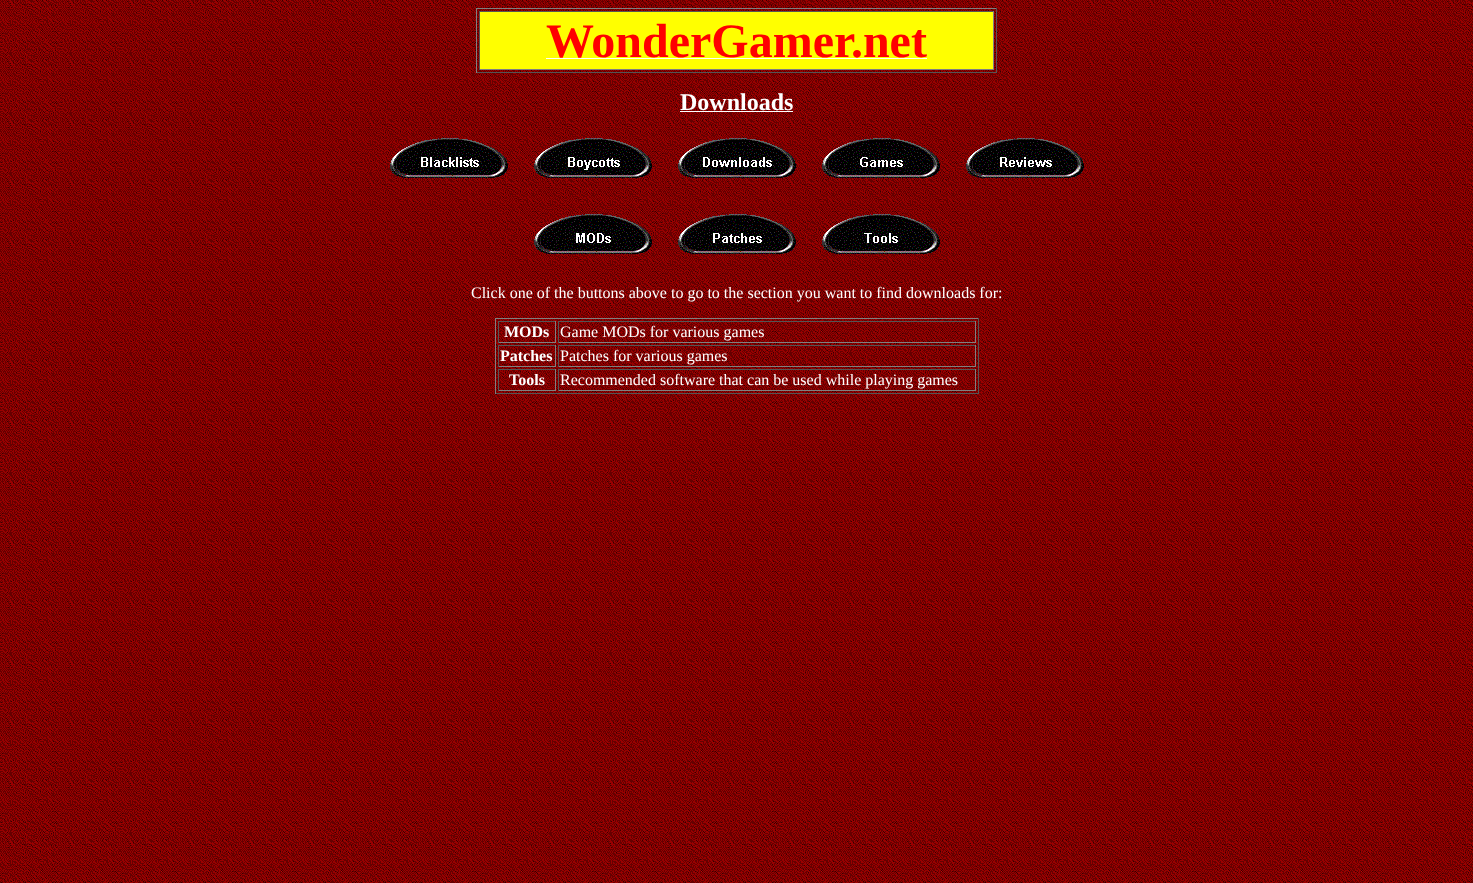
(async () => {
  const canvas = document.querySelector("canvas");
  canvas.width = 1473;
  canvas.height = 883;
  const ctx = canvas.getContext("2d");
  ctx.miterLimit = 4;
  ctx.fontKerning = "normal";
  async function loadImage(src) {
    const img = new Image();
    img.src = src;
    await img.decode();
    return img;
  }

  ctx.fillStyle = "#ffffff";
  ctx.fillRect(0, 0, 1473, 883);
  ctx.drawImage(await loadImage("img/1.png"), 0, 0, 1473, 883);
  for (const [x, y, w, h, color] of [
    [476, 8, 521, 1, "#808080"],
    [996, 8, 1, 65, "#555555"],
    [476, 72, 521, 1, "#555555"],
    [476, 8, 1, 65, "#808080"],
    [480, 12, 513, 57, "#ffff00"],
    [479, 11, 515, 1, "#555555"],
    [993, 11, 1, 59, "#808080"],
    [479, 69, 515, 1, "#808080"],
    [479, 11, 1, 59, "#555555"],
    [546, 58, 381, 1, "#ffffff"],
    [680, 111, 113, 1, "#ffffff"],
  ]) {
    ctx.fillStyle = color;
    ctx.fillRect(x, y, w, h);
  }
  ctx.drawImage(await loadImage("img/2.png"), 390, 138, 118, 40);
  ctx.drawImage(await loadImage("img/3.png"), 534, 138, 118, 40);
  ctx.drawImage(await loadImage("img/4.png"), 678, 138, 118, 40);
  ctx.drawImage(await loadImage("img/5.png"), 822, 138, 118, 40);
  ctx.drawImage(await loadImage("img/6.png"), 966, 138, 118, 40);
  ctx.drawImage(await loadImage("img/7.png"), 534, 214, 118, 40);
  ctx.drawImage(await loadImage("img/8.png"), 678, 214, 118, 40);
  ctx.drawImage(await loadImage("img/9.png"), 822, 214, 118, 40);
  for (const [x, y, w, h, color] of [
    [495, 318, 484, 1, "#808080"],
    [978, 318, 1, 76, "#555555"],
    [495, 393, 484, 1, "#555555"],
    [495, 318, 1, 76, "#808080"],
    [498, 321, 58, 1, "#555555"],
    [555, 321, 1, 22, "#808080"],
    [498, 342, 58, 1, "#808080"],
    [498, 321, 1, 22, "#555555"],
    [558, 321, 418, 1, "#555555"],
    [975, 321, 1, 22, "#808080"],
    [558, 342, 418, 1, "#808080"],
    [558, 321, 1, 22, "#555555"],
    [498, 345, 58, 1, "#555555"],
    [555, 345, 1, 22, "#808080"],
    [498, 366, 58, 1, "#808080"],
    [498, 345, 1, 22, "#555555"],
    [558, 345, 418, 1, "#555555"],
    [975, 345, 1, 22, "#808080"],
    [558, 366, 418, 1, "#808080"],
    [558, 345, 1, 22, "#555555"],
    [498, 369, 58, 1, "#555555"],
    [555, 369, 1, 22, "#808080"],
    [498, 390, 58, 1, "#808080"],
    [498, 369, 1, 22, "#555555"],
    [558, 369, 418, 1, "#555555"],
    [975, 369, 1, 22, "#808080"],
    [558, 390, 418, 1, "#808080"],
    [558, 369, 1, 22, "#555555"],
  ]) {
    ctx.fillStyle = color;
    ctx.fillRect(x, y, w, h);
  }
  ctx.font = "bold 48px Liberation Serif";
  ctx.fillStyle = "#ff0000";
  ctx.fillText("WonderGamer.net", 546, 57);
  ctx.font = "bold 24px Liberation Serif";
  ctx.fillStyle = "#ffffff";
  ctx.fillText("Downloads", 680, 110);
  ctx.font = "16px Liberation Serif";
  ctx.fillText("Click one of the buttons above to go to the section you want to find downloads for:", 471, 298);
  ctx.font = "bold 16px Liberation Serif";
  ctx.fillText("MODs", 504, 337);
  ctx.font = "16px Liberation Serif";
  ctx.fillText("Game MODs for various games", 560, 337);
  ctx.font = "bold 16px Liberation Serif";
  ctx.fillText("Patches", 500, 361);
  ctx.font = "16px Liberation Serif";
  ctx.fillText("Patches for various games", 560, 361);
  ctx.font = "bold 16px Liberation Serif";
  ctx.fillText("Tools", 509, 385);
  ctx.font = "16px Liberation Serif";
  ctx.fillText("Recommended software that can be used while playing games", 560, 385);
})();
